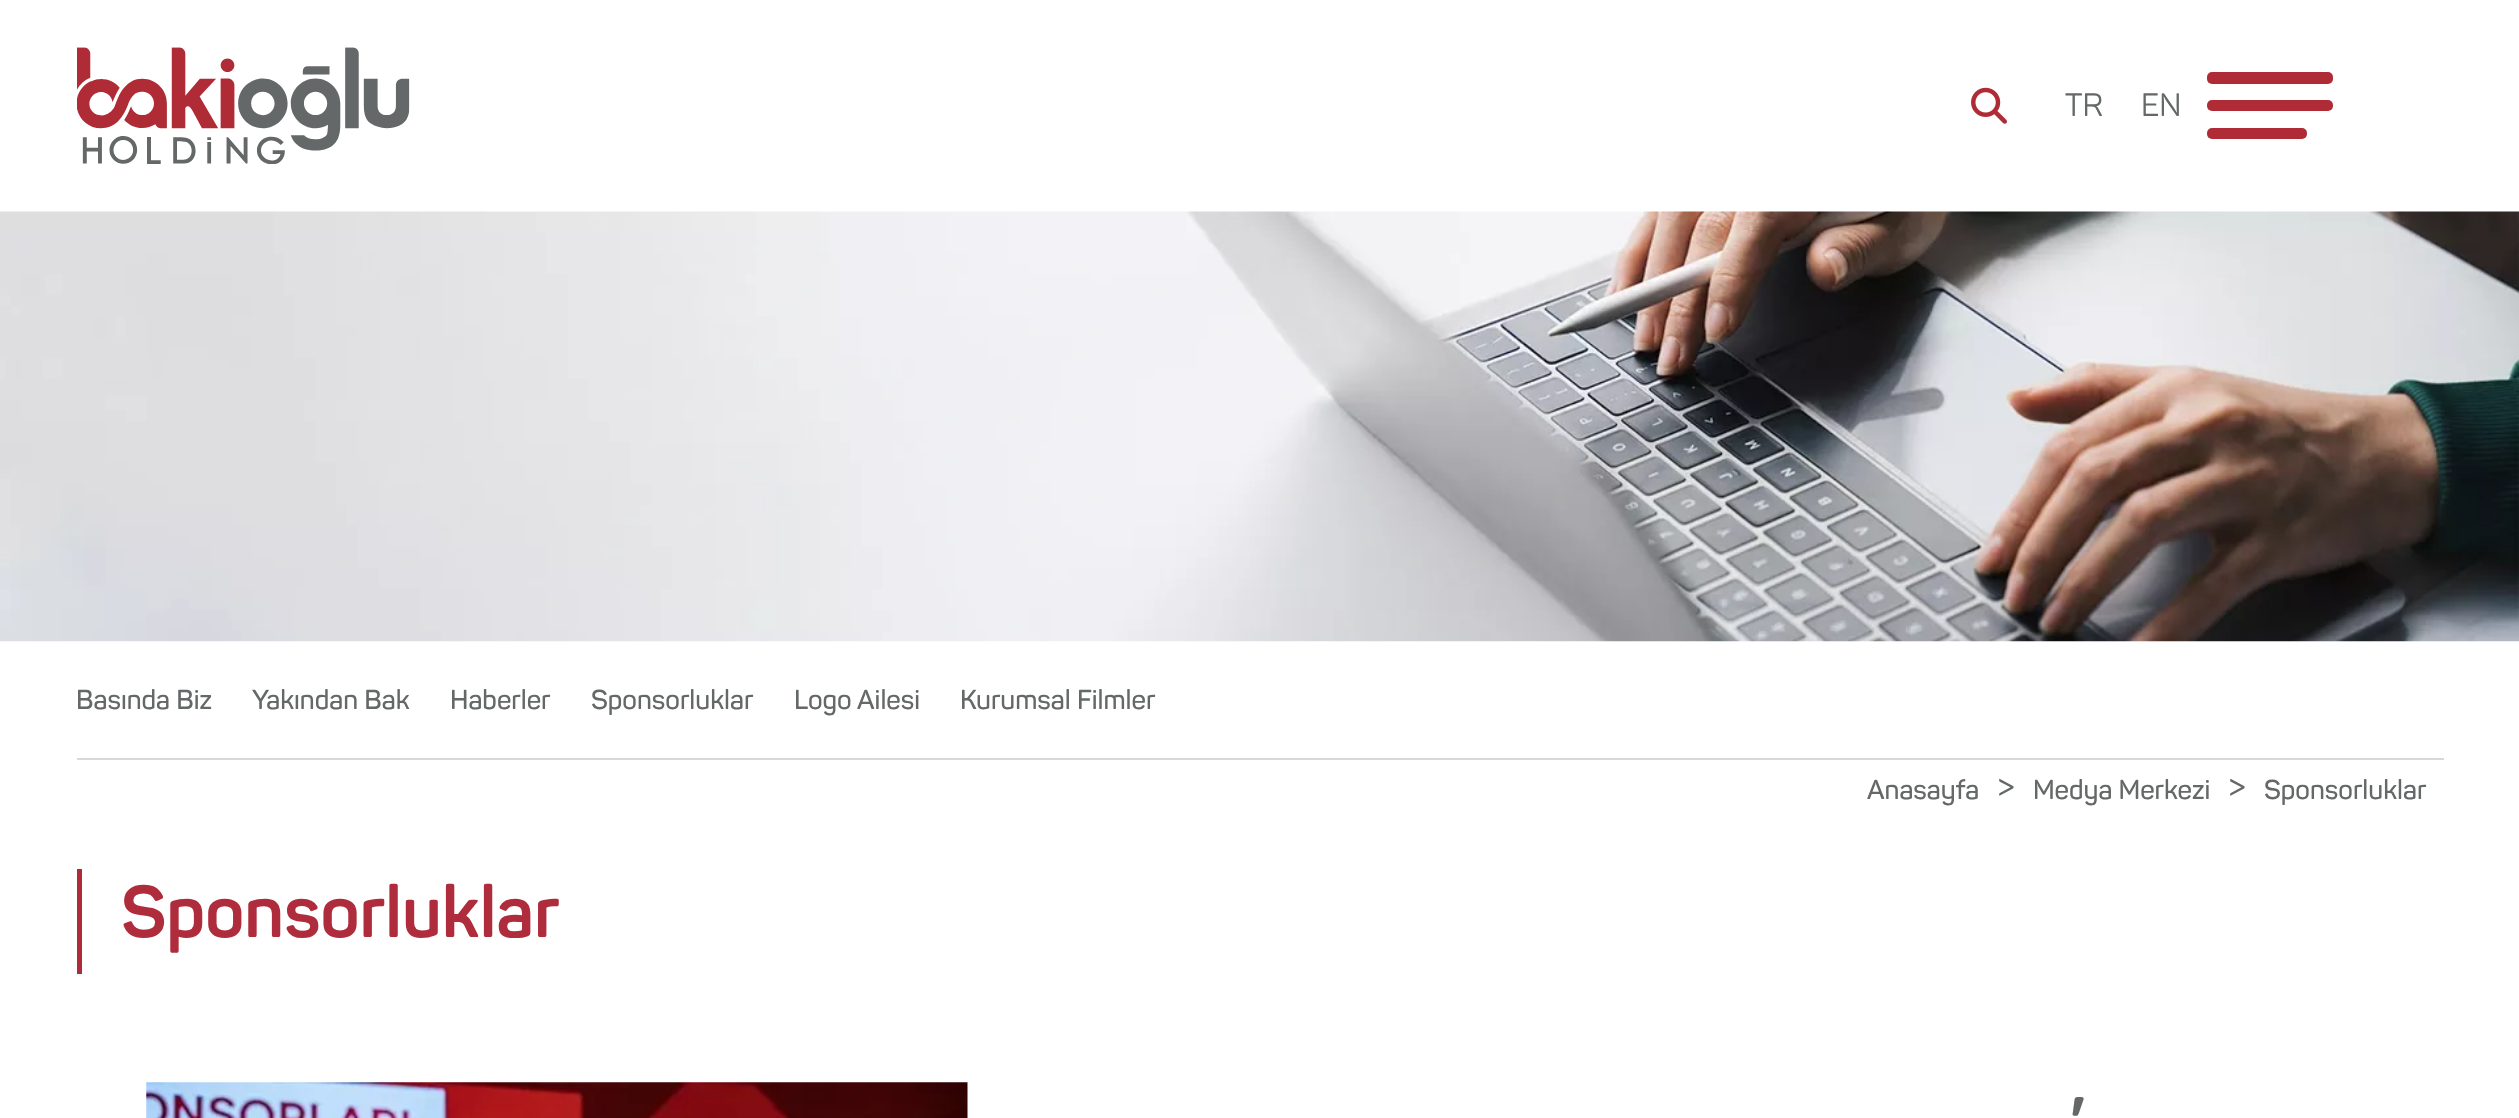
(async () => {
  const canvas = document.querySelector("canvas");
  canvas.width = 2519;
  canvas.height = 1118;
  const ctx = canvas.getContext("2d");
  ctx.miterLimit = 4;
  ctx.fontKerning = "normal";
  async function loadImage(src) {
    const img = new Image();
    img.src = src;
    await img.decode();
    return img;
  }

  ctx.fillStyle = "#ffffff";
  ctx.fillRect(0, 0, 2519, 1118);
  ctx.drawImage(await loadImage("img/1.png"), 77, 47, 333, 117);
  ctx.drawImage(await loadImage("img/2.png"), 1971, 87, 36, 37);
  ctx.fillStyle = "#af2c36";
  ctx.beginPath();
  ctx.roundRect(2207, 72, 126, 12, 5);
  ctx.fill();
  ctx.beginPath();
  ctx.roundRect(2207, 100, 126, 11, 5);
  ctx.fill();
  ctx.beginPath();
  ctx.roundRect(2207, 128, 100, 11, 5);
  ctx.fill();
  ctx.drawImage(await loadImage("img/3.png"), 0, 211, 2519, 431);
  ctx.fillStyle = "#d8d8d8";
  ctx.fillRect(77, 758, 2367, 2);
  ctx.fillStyle = "#af2c36";
  ctx.fillRect(77, 869, 5, 105);
  ctx.drawImage(await loadImage("img/4.png"), 146, 1082, 822, 36);
  ctx.font = "32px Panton";
  ctx.fillStyle = "#656868";
  ctx.fillText("TR", 2065, 116);
  ctx.fillText("EN", 2141, 116);
  ctx.font = "600 27px Panton";
  for (const [text, x, y] of [
    ["Basında Biz", 76, 709],
    ["Yakından Bak", 252, 709],
    ["Haberler", 450, 709],
    ["Sponsorluklar", 591, 709],
    ["Logo Ailesi", 794, 709],
    ["Kurumsal Filmler", 960, 709],
    ["Anasayfa", 1867, 799],
  ]) {
    ctx.fillText(text, x, y);
  }
  ctx.font = "36px Panton";
  ctx.fillText(">", 1997, 799);
  ctx.font = "600 27px Panton";
  ctx.fillText("Medya Merkezi", 2033, 799);
  ctx.font = "36px Panton";
  ctx.fillText(">", 2228, 799);
  ctx.font = "600 27px Panton";
  ctx.fillText("Sponsorluklar", 2264, 799);
  ctx.font = "bold 72px Panton";
  ctx.fillStyle = "#af2c3c";
  ctx.fillText("Sponsorluklar", 121, 937);
  ctx.font = "bold 76px Panton";
  ctx.fillStyle = "#656868";
  ctx.fillText("’", 2069, 1151);
})();
